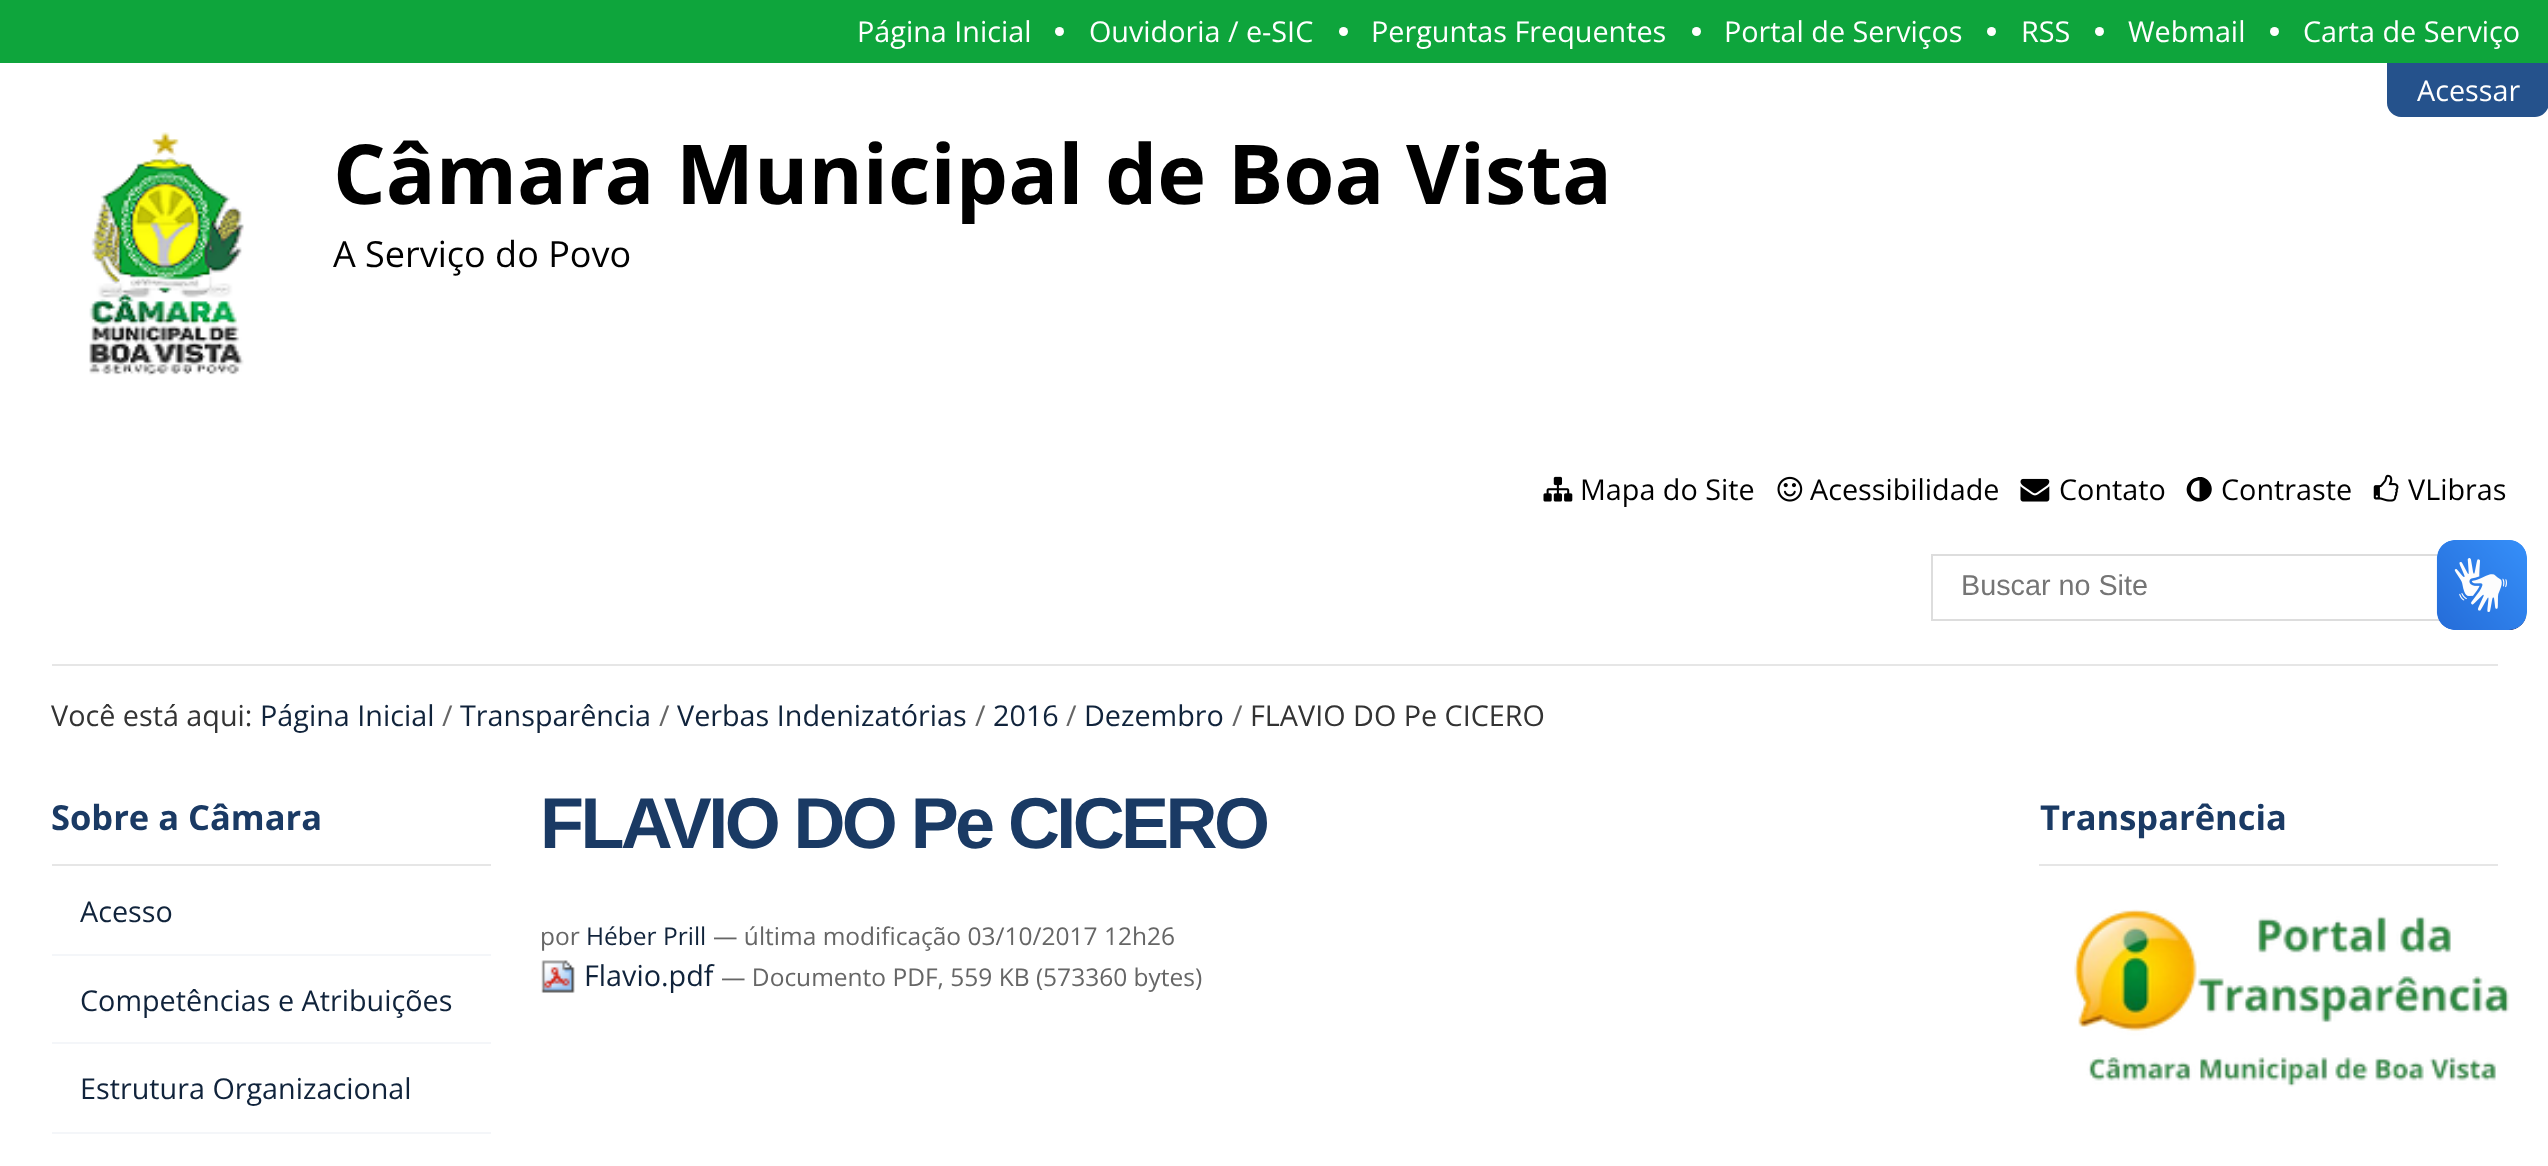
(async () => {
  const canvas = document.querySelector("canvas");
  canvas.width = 2548;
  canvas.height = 1166;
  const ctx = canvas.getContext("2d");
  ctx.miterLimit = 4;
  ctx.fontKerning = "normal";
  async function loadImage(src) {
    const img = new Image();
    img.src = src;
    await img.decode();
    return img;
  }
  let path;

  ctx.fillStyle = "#ffffff";
  ctx.fillRect(0, 0, 2548, 1166);
  ctx.fillStyle = "#0ea53c";
  ctx.fillRect(0, 0, 2548, 63);
  ctx.fillStyle = "#ffffff";
  ctx.beginPath();
  ctx.arc(1059.5, 31.5, 4.5, 0, Math.PI * 2);
  ctx.fill();
  ctx.beginPath();
  ctx.arc(1343.5, 31.5, 4.5, 0, Math.PI * 2);
  ctx.fill();
  ctx.beginPath();
  ctx.arc(1696.5, 31.5, 4.5, 0, Math.PI * 2);
  ctx.fill();
  ctx.beginPath();
  ctx.arc(1991.5, 31.5, 4.5, 0, Math.PI * 2);
  ctx.fill();
  ctx.beginPath();
  ctx.arc(2099.5, 31.5, 4.5, 0, Math.PI * 2);
  ctx.fill();
  ctx.beginPath();
  ctx.arc(2274.5, 31.5, 4.5, 0, Math.PI * 2);
  ctx.fill();
  ctx.fillStyle = "#25528c";
  path = new Path2D("M2387 63H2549V103C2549 110.5 2542.5 117 2535 117H2401C2393.5 117 2387 110.5 2387 103Z");
  ctx.fill(path);
  ctx.drawImage(await loadImage("img/1.png"), 89, 132, 155, 244);
  ctx.drawImage(await loadImage("img/2.png"), 1543, 476, 30, 26);
  ctx.drawImage(await loadImage("img/3.png"), 1777, 476, 26, 26);
  ctx.drawImage(await loadImage("img/4.png"), 2020, 478, 30, 24);
  ctx.fillStyle = "#000000";
  path = new Path2D("M2199.5 498V480.5C2188 480.5 2188 498 2199.5 498ZM2210 483C2218 497 2197 509.5 2188.5 495.5C2180.5 481.5 2202 469 2210 483Z");
  ctx.fill(path);
  ctx.drawImage(await loadImage("img/5.png"), 2373, 474, 26, 28);
  ctx.strokeStyle = "#dddddd";
  ctx.lineWidth = 2;
  ctx.strokeRect(1932, 555, 574, 65);
  for (const [x, y, w, h, color] of [
    [52, 664, 2446, 2, "#e6e6e6"],
    [52, 864, 439, 2, "#e6e6e6"],
    [52, 954, 439, 2, "#f4f6f9"],
    [52, 1042, 439, 2, "#f4f6f9"],
    [52, 1132, 439, 2, "#f4f6f9"],
  ]) {
    ctx.fillStyle = color;
    ctx.fillRect(x, y, w, h);
  }
  ctx.drawImage(await loadImage("img/6.png"), 541, 960, 34, 33);
  ctx.fillStyle = "#e6e6e6";
  ctx.fillRect(2039, 864, 459, 2);
  ctx.drawImage(await loadImage("img/7.png"), 2074, 909, 436, 178);
  ctx.drawImage(await loadImage("img/8.png"), 2436, 540, 91, 90);
  ctx.drawImage(await loadImage("img/9.png"), 2437, 540, 90, 90);
  ctx.font = "28.75px Open Sans";
  ctx.fillStyle = "#ffffff";
  for (const [text, x, y] of [
    ["Página Inicial", 857, 42],
    ["Ouvidoria / e-SIC", 1089, 42],
    ["Perguntas Frequentes", 1371, 42],
    ["Portal de Serviços", 1724, 42],
    ["RSS", 2021, 42],
    ["Webmail", 2128, 42],
    ["Carta de Serviço", 2303, 42],
    ["Acessar", 2417, 101],
  ]) {
    ctx.fillText(text, x, y);
  }
  ctx.font = "bold 82.75px Open Sans";
  ctx.fillStyle = "#000000";
  ctx.fillText("Câmara Municipal de Boa Vista", 333, 204);
  ctx.font = "36px Open Sans";
  ctx.fillText("A Serviço do Povo", 333, 267);
  ctx.font = "28.75px Open Sans";
  for (const [text, x, y] of [
    ["Mapa do Site", 1580, 500],
    ["Acessibilidade", 1810, 500],
    ["Contato", 2059, 500],
    ["Contraste", 2221, 500],
    ["VLibras", 2408, 500],
  ]) {
    ctx.fillText(text, x, y);
  }
  ctx.font = "28.75px Liberation Sans";
  ctx.fillStyle = "#757575";
  ctx.fillText("Buscar no Site", 1961, 595);
  ctx.font = "28.75px Open Sans";
  ctx.fillStyle = "#333333";
  ctx.fillText("Você está aqui:", 51, 726);
  ctx.fillStyle = "#10233b";
  ctx.fillText("Página Inicial", 260, 726);
  ctx.fillStyle = "#666666";
  ctx.fillText("/", 442, 726);
  ctx.fillStyle = "#10233b";
  ctx.fillText("Transparência", 460, 726);
  ctx.fillStyle = "#666666";
  ctx.fillText("/", 659, 726);
  ctx.fillStyle = "#10233b";
  ctx.fillText("Verbas Indenizatórias", 677, 726);
  ctx.fillStyle = "#666666";
  ctx.fillText("/", 975, 726);
  ctx.fillStyle = "#10233b";
  ctx.fillText("2016", 993, 726);
  ctx.fillStyle = "#666666";
  ctx.fillText("/", 1066, 726);
  ctx.fillStyle = "#10233b";
  ctx.fillText("Dezembro", 1084, 726);
  ctx.fillStyle = "#666666";
  ctx.fillText("/", 1232, 726);
  ctx.fillStyle = "#333333";
  ctx.fillText("FLAVIO DO Pe CICERO", 1250, 726);
  ctx.font = "bold 34.5px Open Sans";
  ctx.fillStyle = "#1a3a64";
  ctx.fillText("Sobre a Câmara", 51, 830);
  ctx.font = "28.75px Open Sans";
  ctx.fillStyle = "#10233b";
  for (const [text, x, y] of [
    ["Acesso", 80, 922],
    ["Competências e Atribuições", 80, 1011],
    ["Estrutura Organizacional", 80, 1099],
  ]) {
    ctx.fillText(text, x, y);
  }
  ctx.letterSpacing = "-3.6px";
  ctx.font = "bold 72px Liberation Sans";
  ctx.fillStyle = "#1a3a64";
  ctx.fillText("FLAVIO DO Pe CICERO", 540, 848);
  ctx.letterSpacing = "0px";
  ctx.font = "24.5px Open Sans";
  ctx.fillStyle = "#666666";
  ctx.fillText("por", 540, 945);
  ctx.fillStyle = "#10233b";
  ctx.fillText("Héber Prill", 586, 945);
  ctx.fillStyle = "#666666";
  ctx.fillText("— última modificação 03/10/2017 12h26", 713, 945);
  ctx.font = "28.75px Open Sans";
  ctx.fillStyle = "#10233b";
  ctx.fillText("Flavio.pdf", 584, 986);
  ctx.font = "24.5px Open Sans";
  ctx.fillStyle = "#666666";
  ctx.fillText("— Documento PDF, 559 KB (573360 bytes)", 721, 986);
  ctx.font = "bold 34.5px Open Sans";
  ctx.fillStyle = "#1a3a64";
  ctx.fillText("Transparência", 2040, 830);
})();
